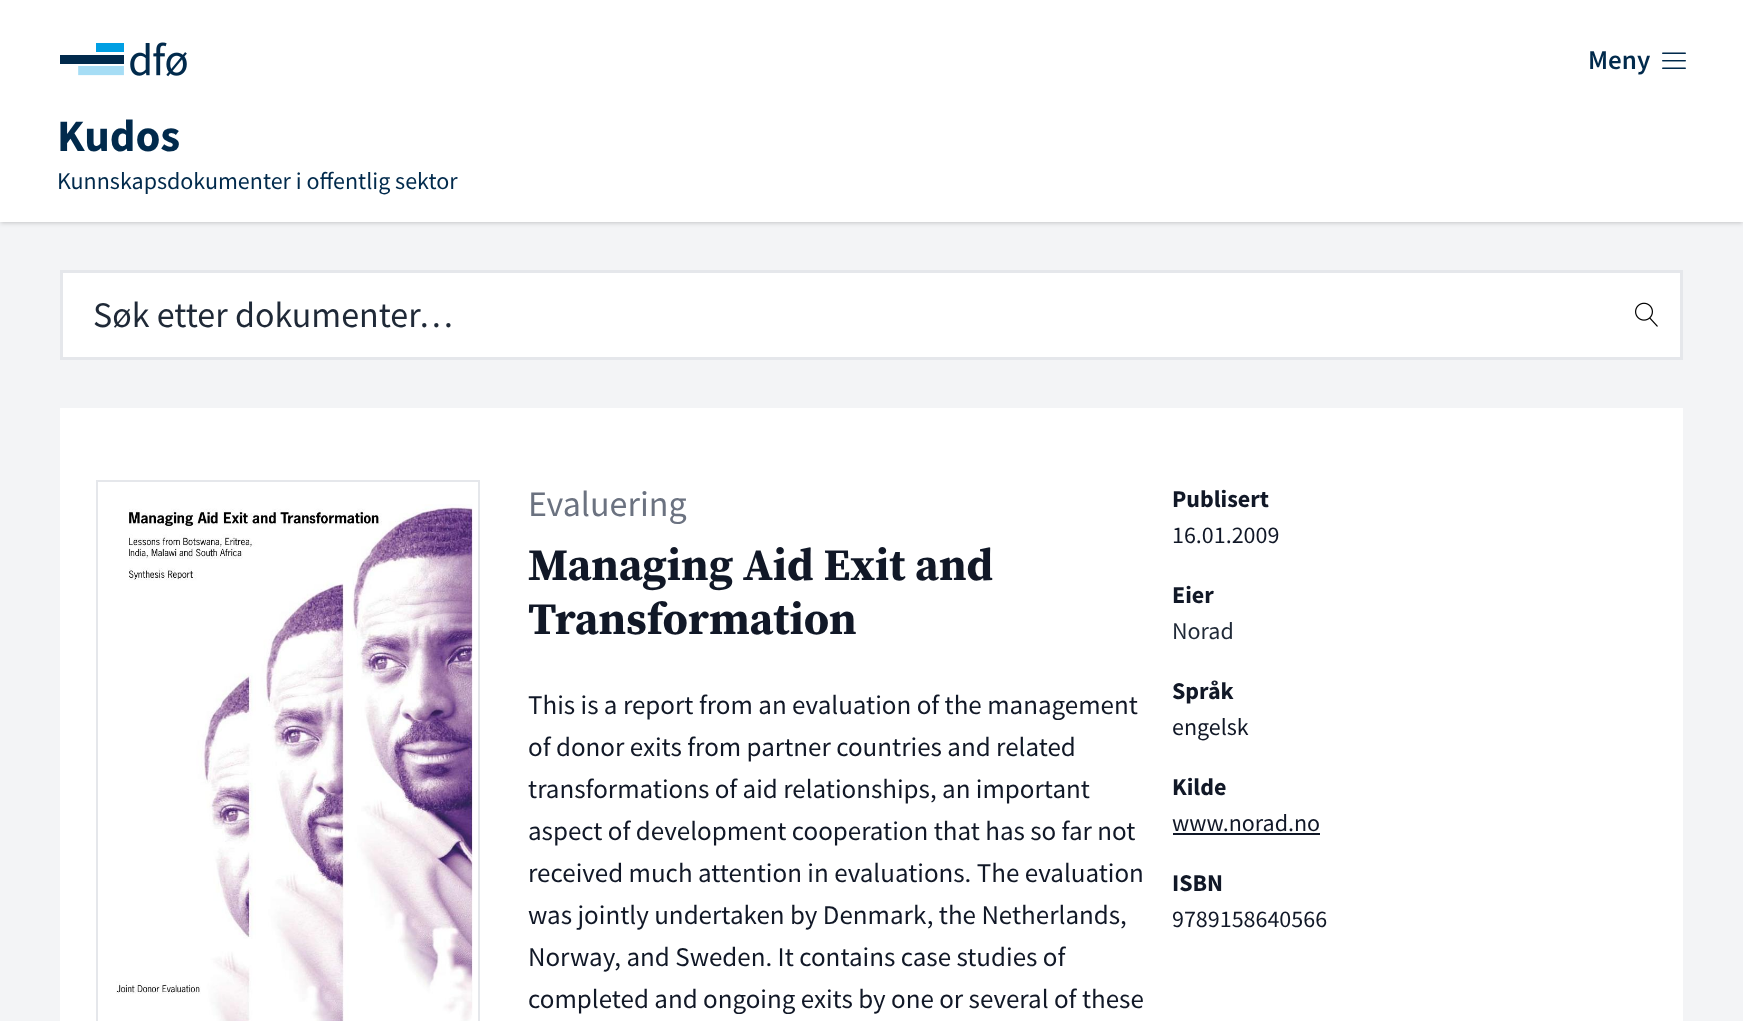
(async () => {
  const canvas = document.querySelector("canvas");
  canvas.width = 1743;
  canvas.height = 1021;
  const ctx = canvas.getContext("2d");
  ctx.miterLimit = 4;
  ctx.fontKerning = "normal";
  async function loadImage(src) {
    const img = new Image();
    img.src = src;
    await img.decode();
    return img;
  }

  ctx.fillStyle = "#f3f4f6";
  ctx.fillRect(0, 0, 1743, 1021);
  ctx.fillStyle = "rgba(0, 0, 0, 0.1)";
  ctx.filter = "blur(1.5px)";
  ctx.beginPath();
  ctx.rect(2, 3, 1740, 219);
  ctx.fill();
  ctx.filter = "none";
  ctx.filter = "blur(2px)";
  ctx.beginPath();
  ctx.rect(0, 2, 1743, 222);
  ctx.fill();
  ctx.filter = "none";
  ctx.fillStyle = "#ffffff";
  ctx.fillRect(0, 0, 1743, 222);
  ctx.drawImage(await loadImage("img/1.png"), 60, 42, 127, 35);
  ctx.drawImage(await loadImage("img/2.png"), 1662, 52, 24, 17);
  ctx.beginPath();
  ctx.rect(61.5, 271.5, 1620, 87);
  ctx.fill();
  ctx.strokeStyle = "#e5e7eb";
  ctx.lineWidth = 3;
  ctx.stroke();
  ctx.drawImage(await loadImage("img/3.png"), 1635, 302, 23, 25);
  ctx.fillRect(60, 408, 1623, 613);
  ctx.lineWidth = 2;
  ctx.strokeRect(97, 481, 382, 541);
  ctx.drawImage(await loadImage("img/4.png"), 116, 504, 357, 517);
  ctx.fillStyle = "#111827";
  ctx.fillRect(1173, 833, 147, 2);
  ctx.font = "600 27px Source Sans Pro";
  ctx.fillStyle = "#012a4c";
  ctx.fillText("Meny", 1588, 69);
  ctx.font = "bold 45px Source Sans Pro";
  ctx.fillText("Kudos", 57, 151);
  ctx.font = "24px Source Sans Pro";
  ctx.fillText("Kunnskapsdokumenter i offentlig sektor", 57, 189);
  ctx.font = "36px Source Sans Pro";
  ctx.fillStyle = "#1f2937";
  ctx.fillText("Søk etter dokumenter…", 93, 327);
  ctx.fillStyle = "#6b7280";
  ctx.fillText("Evaluering", 528, 516);
  ctx.font = "bold 45px Source Serif Pro";
  ctx.fillStyle = "#111827";
  ctx.fillText("Managing Aid Exit and", 528, 580);
  ctx.fillText("Transformation", 528, 634);
  ctx.font = "27px Source Sans Pro";
  for (const [text, x, y] of [
    ["This is a report from an evaluation of the management", 528, 714],
    ["of donor exits from partner countries and related", 528, 756],
    ["transformations of aid relationships, an important", 528, 798],
    ["aspect of development cooperation that has so far not", 528, 840],
    ["received much attention in evaluations. The evaluation", 528, 882],
    ["was jointly undertaken by Denmark, the Netherlands,", 528, 924],
    ["Norway, and Sweden. It contains case studies of", 528, 966],
    ["completed and ongoing exits by one or several of these", 528, 1008],
  ]) {
    ctx.fillText(text, x, y);
  }
  ctx.font = "bold 24px Source Sans Pro";
  ctx.fillText("Publisert", 1172, 507);
  ctx.font = "24px Source Sans Pro";
  ctx.fillText("16.01.2009", 1172, 543);
  ctx.font = "bold 24px Source Sans Pro";
  ctx.fillText("Eier", 1172, 603);
  ctx.font = "24px Source Sans Pro";
  ctx.fillStyle = "#1f2937";
  ctx.fillText("Norad", 1172, 639);
  ctx.font = "bold 24px Source Sans Pro";
  ctx.fillStyle = "#111827";
  ctx.fillText("Språk", 1172, 699);
  ctx.font = "24px Source Sans Pro";
  ctx.fillText("engelsk", 1172, 735);
  ctx.font = "bold 24px Source Sans Pro";
  ctx.fillText("Kilde", 1172, 795);
  ctx.font = "24px Source Sans Pro";
  ctx.fillText("www.norad.no", 1172, 831);
  ctx.font = "bold 24px Source Sans Pro";
  ctx.fillText("ISBN", 1172, 891);
  ctx.font = "24px Source Sans Pro";
  ctx.fillText("9789158640566", 1172, 927);
})();
